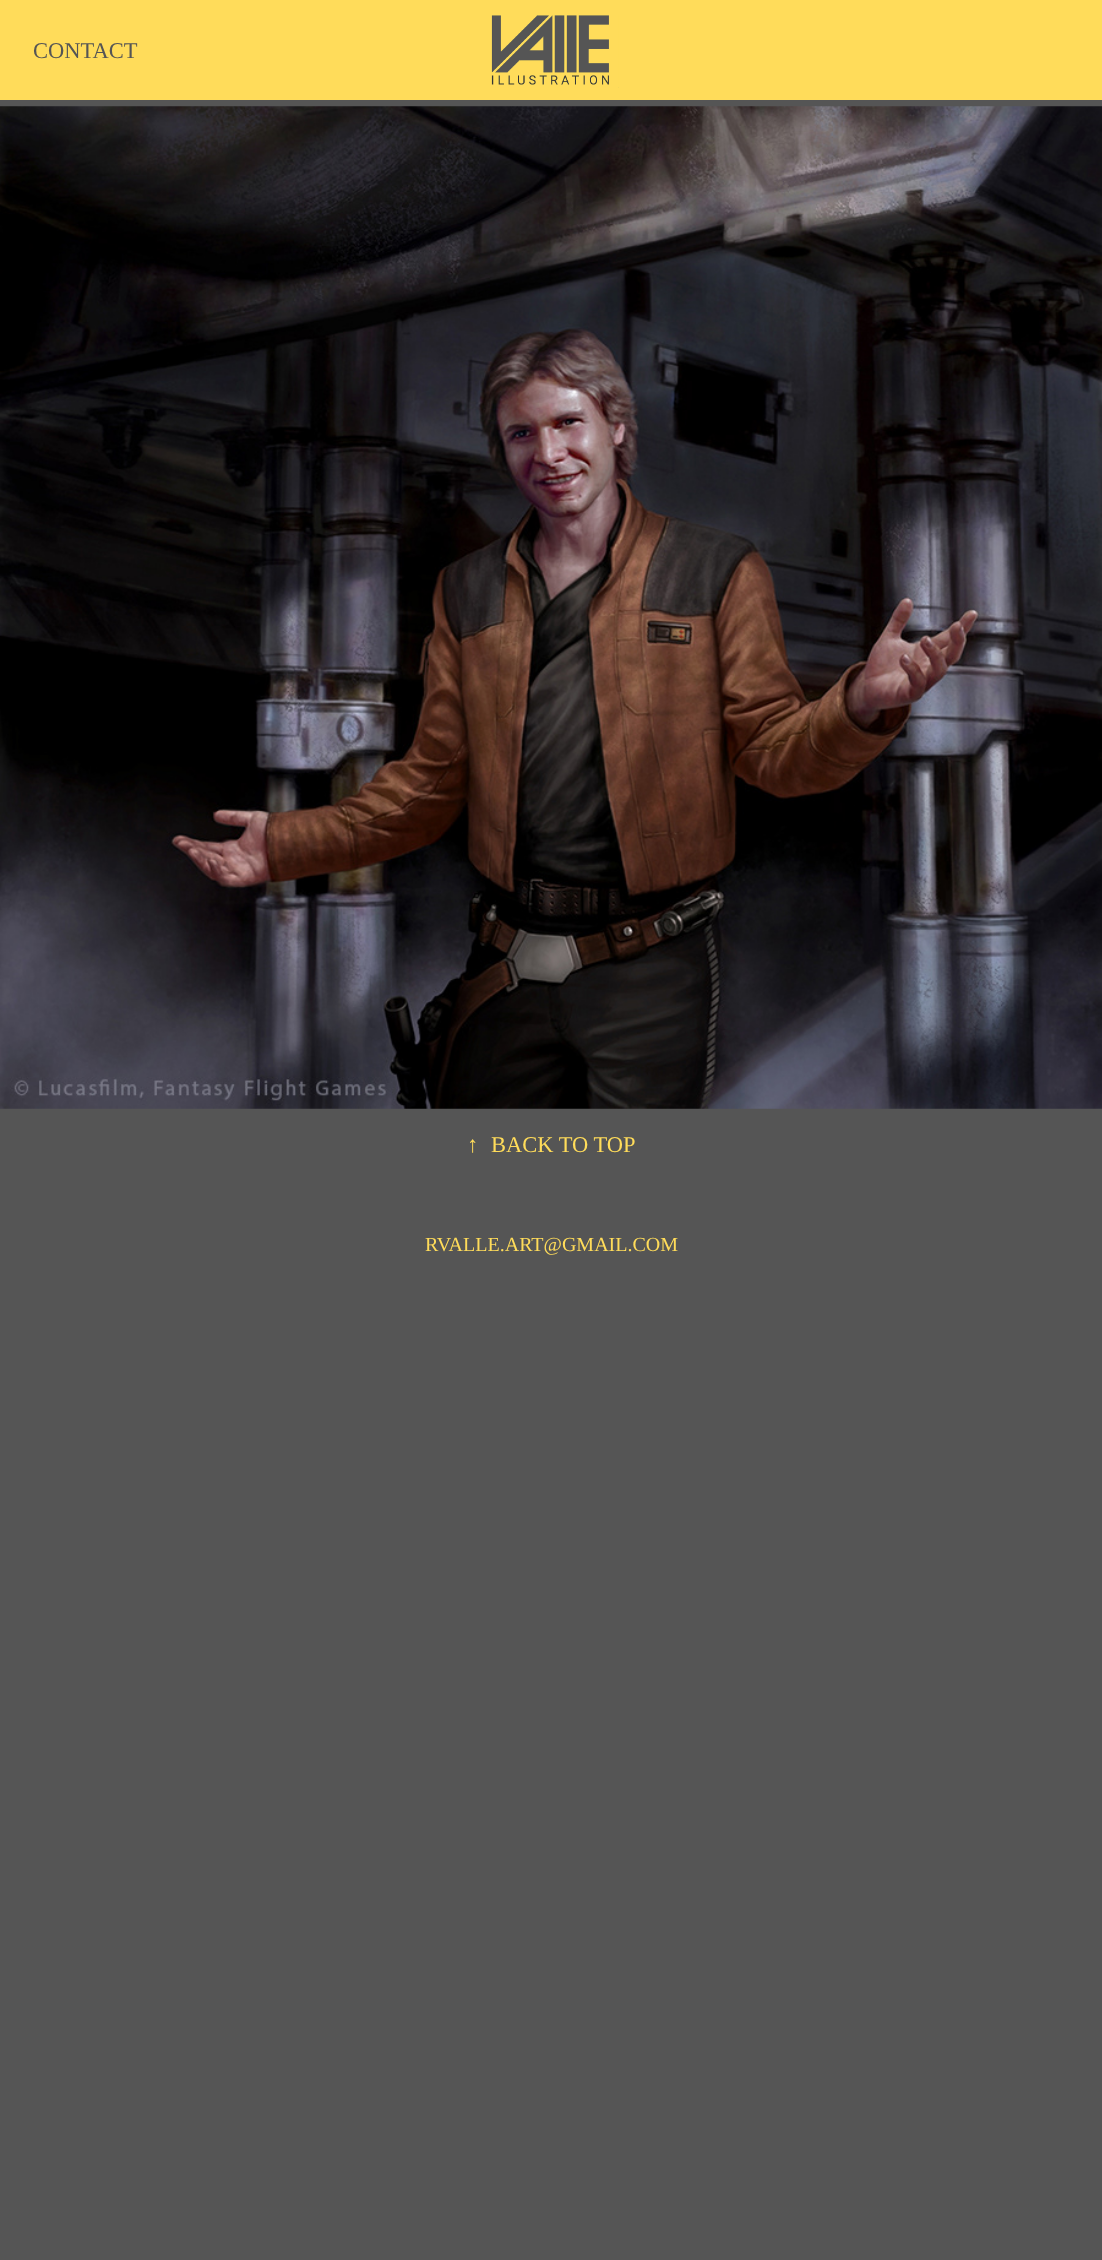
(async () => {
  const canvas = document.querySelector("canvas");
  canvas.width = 1102;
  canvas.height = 2260;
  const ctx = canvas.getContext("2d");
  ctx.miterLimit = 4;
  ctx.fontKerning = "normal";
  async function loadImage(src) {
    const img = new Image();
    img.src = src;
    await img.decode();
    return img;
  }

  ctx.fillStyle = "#555555";
  ctx.fillRect(0, 0, 1102, 2260);
  ctx.fillStyle = "#ffdc5a";
  ctx.fillRect(0, 0, 1102, 100);
  ctx.drawImage(await loadImage("img/1.png"), 491, 15, 128, 73);
  ctx.drawImage(await loadImage("img/2.png"), 0, 106, 1102, 1003);
  ctx.font = "22.5px Liberation Serif";
  ctx.fillStyle = "#555555";
  ctx.fillText("CONTACT", 33, 58);
  ctx.fillStyle = "#ffdc5a";
  ctx.fillText("↑", 467, 1152);
  ctx.fillText("BACK TO TOP", 491, 1152);
  ctx.font = "20px Liberation Serif";
  ctx.fillText("RVALLE.ART@GMAIL.COM", 425, 1251);
})();
